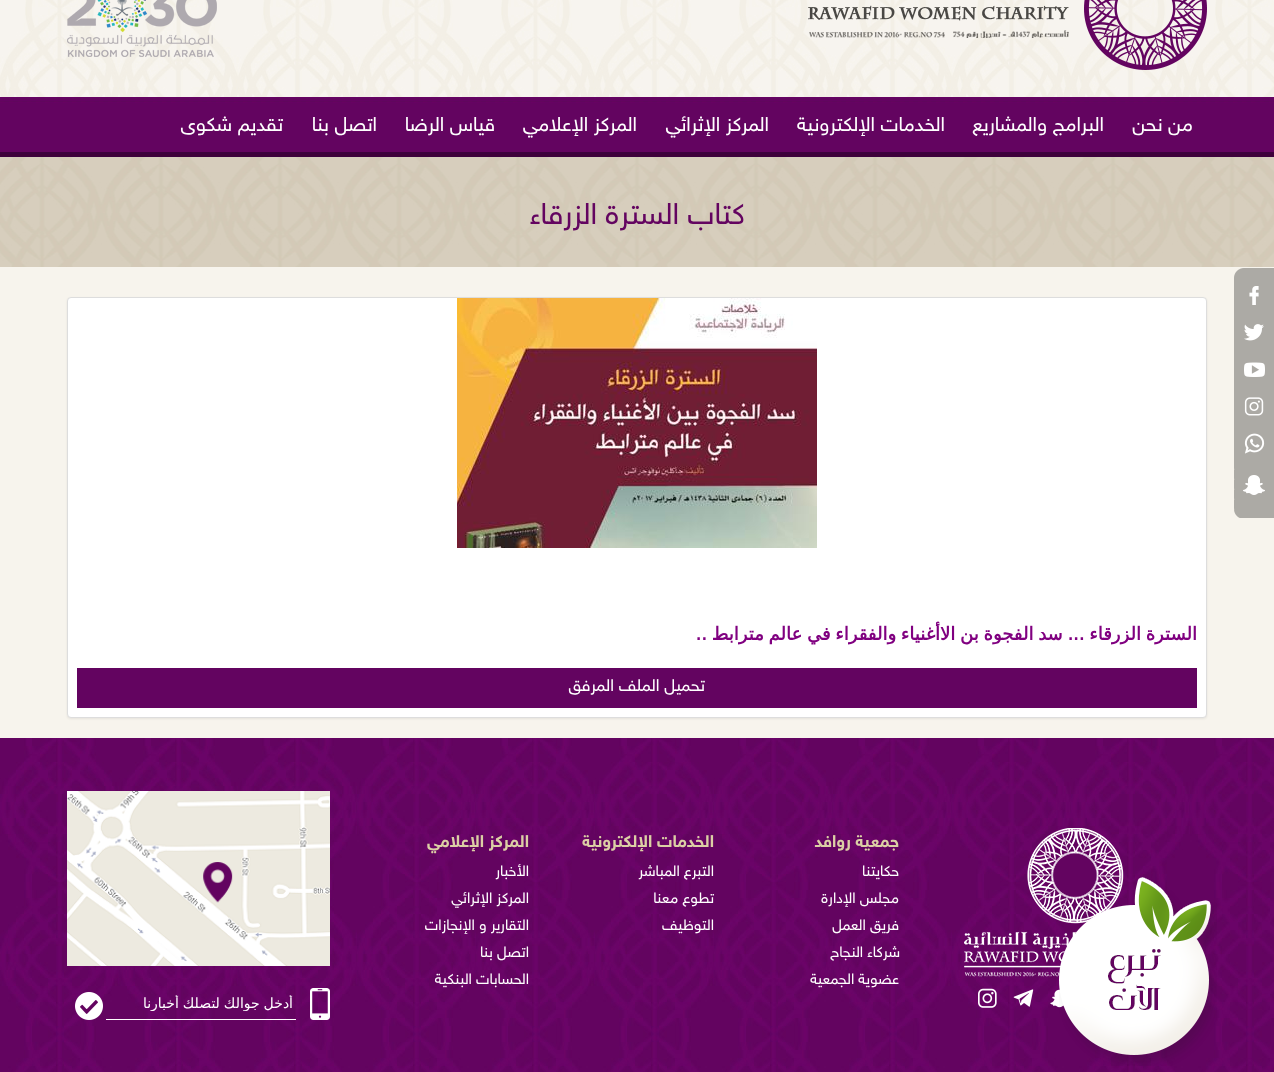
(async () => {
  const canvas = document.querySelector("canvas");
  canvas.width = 1274;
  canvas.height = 1072;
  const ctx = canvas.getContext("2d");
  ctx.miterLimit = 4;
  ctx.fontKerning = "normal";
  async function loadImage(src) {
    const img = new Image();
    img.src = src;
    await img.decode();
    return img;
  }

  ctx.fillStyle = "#f7f4ed";
  ctx.fillRect(0, 0, 1274, 1072);
  ctx.drawImage(await loadImage("img/1.png"), 0, 0, 1274, 97);
  ctx.drawImage(await loadImage("img/2.png"), 808, 0, 399, 70);
  ctx.drawImage(await loadImage("img/3.png"), 67, 0, 150, 57);
  ctx.drawImage(await loadImage("img/4.png"), 0, 97, 1274, 60);
  ctx.drawImage(await loadImage("img/5.png"), 0, 157, 1274, 110);
  ctx.drawImage(await loadImage("img/6.png"), 1234, 268, 40, 250);
  ctx.fillStyle = "rgba(0, 0, 0, 0.07)";
  ctx.filter = "blur(1px)";
  ctx.beginPath();
  ctx.roundRect(67, 298, 1140, 421, 4);
  ctx.fill();
  ctx.filter = "none";
  ctx.fillStyle = "#ffffff";
  ctx.beginPath();
  ctx.roundRect(67.5, 297.5, 1139, 420, 3.5);
  ctx.fill();
  ctx.strokeStyle = "#dddddd";
  ctx.stroke();
  ctx.drawImage(await loadImage("img/7.png"), 457, 298, 360, 250);
  ctx.fillStyle = "#630460";
  ctx.fillRect(77, 668, 1120, 40);
  ctx.drawImage(await loadImage("img/9.png"), 0, 738, 1274, 334);
  ctx.drawImage(await loadImage("img/10.png"), 964, 828, 160, 180);
  ctx.drawImage(await loadImage("img/8.png"), 1059, 877, 158, 189);
  ctx.drawImage(await loadImage("img/11.png"), 67, 791, 263, 175);
  ctx.drawImage(await loadImage("img/12.png"), 75, 988, 255, 32);
  ctx.direction = "rtl";
  ctx.font = "20px 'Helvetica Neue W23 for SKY'";
  ctx.fillStyle = "#ffffff";
  for (const [text, x, y] of [
    ["من نحن", 1193, 131],
    ["البرامج والمشاريع", 1104, 131],
    ["الخدمات الإلكترونية", 945, 131],
    ["المركز الإثرائي", 769, 131],
    ["المركز الإعلامي", 637, 131],
    ["قياس الرضا", 495, 131],
    ["اتصل بنا", 377, 131],
    ["تقديم شكوى", 283, 131],
  ]) {
    ctx.fillText(text, x, y);
  }
  ctx.font = "30px 'Helvetica Neue W23 for SKY'";
  ctx.fillStyle = "#630460";
  ctx.fillText("كتاب السترة الزرقاء", 745, 224);
  ctx.save();
  ctx.beginPath();
  ctx.rect(77, 557, 1120, 111);
  ctx.clip();
  ctx.wordSpacing = "-1px";
  ctx.font = "bold 18px DejaVu Sans";
  ctx.fillStyle = "#800080";
  ctx.fillText("السترة الزرقاء ... سد الفجوة بن الاأغنياء والفقراء في عالم مترابط ..", 1197, 640);
  ctx.restore();
  ctx.font = "17px 'Helvetica Neue W23 for SKY'";
  ctx.fillStyle = "#ffffff";
  ctx.fillText("تحميل الملف المرفق", 705, 691);
  ctx.font = "bold 17px 'Helvetica Neue W23 for SKY'";
  ctx.fillStyle = "#dccfa5";
  ctx.fillText("جمعية روافد", 899, 847);
  ctx.font = "15px 'Helvetica Neue W23 for SKY'";
  ctx.fillStyle = "#ffffff";
  for (const [text, x, y] of [
    ["حكايتنا", 899, 876],
    ["مجلس الإدارة", 899, 903],
    ["فريق العمل", 899, 930],
    ["شركاء النجاح", 900, 957],
    ["عضوية الجمعية", 899, 984],
  ]) {
    ctx.fillText(text, x, y);
  }
  ctx.font = "bold 17px 'Helvetica Neue W23 for SKY'";
  ctx.fillStyle = "#dccfa5";
  ctx.fillText("الخدمات الإلكترونية", 714, 847);
  ctx.font = "15px 'Helvetica Neue W23 for SKY'";
  ctx.fillStyle = "#ffffff";
  for (const [text, x, y] of [
    ["التبرع المباشر", 714, 876],
    ["تطوع معنا", 714, 903],
    ["التوظيف", 714, 930],
  ]) {
    ctx.fillText(text, x, y);
  }
  ctx.font = "bold 17px 'Helvetica Neue W23 for SKY'";
  ctx.fillStyle = "#dccfa5";
  ctx.fillText("المركز الإعلامي", 529, 847);
  ctx.font = "15px 'Helvetica Neue W23 for SKY'";
  ctx.fillStyle = "#ffffff";
  for (const [text, x, y] of [
    ["الأخبار", 529, 876],
    ["المركز الإثرائي", 529, 903],
    ["التقارير و الإنجازات", 529, 930],
    ["اتصل بنا", 529, 957],
    ["الحسابات البنكية", 529, 984],
  ]) {
    ctx.fillText(text, x, y);
  }
  ctx.save();
  ctx.beginPath();
  ctx.rect(107, 995, 187, 16);
  ctx.clip();
  ctx.wordSpacing = "-0.5px";
  ctx.font = "14px DejaVu Sans";
  ctx.fillText("أدخل جوالك لتصلك أخبارنا", 293, 1008);
  ctx.restore();
})();
